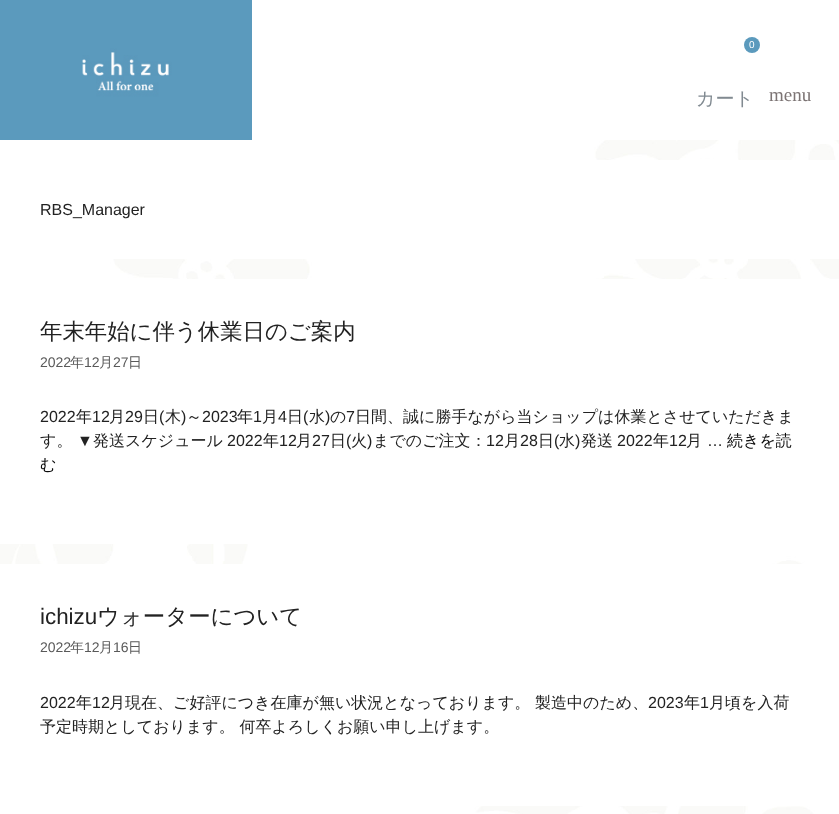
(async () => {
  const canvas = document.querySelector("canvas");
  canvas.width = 839;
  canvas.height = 814;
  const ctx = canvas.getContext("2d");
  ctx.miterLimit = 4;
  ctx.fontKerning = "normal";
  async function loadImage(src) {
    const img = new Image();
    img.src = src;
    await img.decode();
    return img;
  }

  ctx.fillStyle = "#ffffff";
  ctx.fillRect(0, 0, 839, 814);
  ctx.drawImage(await loadImage("img/1.png"), 0, 140, 839, 674);
  ctx.drawImage(await loadImage("img/2.png"), 0, 0, 252, 140);
  ctx.fillStyle = "#5b9abd";
  ctx.beginPath();
  ctx.arc(752, 45, 8, 0, Math.PI * 2);
  ctx.fill();
  for (const [x, y, w, h, color] of [
    [110, 160, 729, 99, "#ffffff"],
    [0, 279, 839, 265, "#ffffff"],
    [0, 564, 839, 242, "#ffffff"],
  ]) {
    ctx.fillStyle = color;
    ctx.fillRect(x, y, w, h);
  }
  ctx.font = "10px Liberation Sans";
  ctx.fillText("0", 749, 48);
  ctx.font = "500 19px WenQuanYi Zen Hei";
  ctx.fillStyle = "#818a91";
  ctx.fillText("カート", 696, 105);
  ctx.font = "19px Liberation Serif";
  ctx.fillStyle = "#7c7474";
  ctx.fillText("menu", 769, 101);
  ctx.font = "16px Liberation Sans";
  ctx.fillStyle = "#222222";
  ctx.fillText("RBS_Manager", 40, 215);
  ctx.font = "500 22.4px WenQuanYi Zen Hei";
  ctx.fillText("年末年始に伴う休業日のご案内", 40, 339);
  ctx.font = "14px Liberation Sans";
  ctx.fillStyle = "#595959";
  ctx.fillText("2022", 40, 367);
  ctx.font = "500 14px WenQuanYi Zen Hei";
  ctx.fillText("年", 70, 367);
  ctx.font = "14px Liberation Sans";
  ctx.fillText("12", 84, 367);
  ctx.font = "500 14px WenQuanYi Zen Hei";
  ctx.fillText("月", 99, 367);
  ctx.font = "14px Liberation Sans";
  ctx.fillText("27", 113, 367);
  ctx.font = "500 14px WenQuanYi Zen Hei";
  ctx.fillText("日", 128, 367);
  ctx.font = "16px Liberation Sans";
  ctx.fillStyle = "#222222";
  ctx.fillText("2022", 40, 422);
  ctx.font = "500 16px WenQuanYi Zen Hei";
  ctx.fillText("年", 76, 422);
  ctx.font = "16px Liberation Sans";
  ctx.fillText("12", 92, 422);
  ctx.font = "500 16px WenQuanYi Zen Hei";
  ctx.fillText("月", 109, 422);
  ctx.font = "16px Liberation Sans";
  ctx.fillText("29", 125, 422);
  ctx.font = "500 16px WenQuanYi Zen Hei";
  ctx.fillText("日", 143, 422);
  ctx.font = "16px Liberation Sans";
  ctx.fillText("(", 159, 422);
  ctx.font = "500 16px WenQuanYi Zen Hei";
  ctx.fillText("木", 165, 422);
  ctx.font = "16px Liberation Sans";
  ctx.fillText(")", 181, 422);
  ctx.font = "500 16px WenQuanYi Zen Hei";
  ctx.fillText("～", 186, 422);
  ctx.font = "16px Liberation Sans";
  ctx.fillText("2023", 202, 422);
  ctx.font = "500 16px WenQuanYi Zen Hei";
  ctx.fillText("年", 237, 422);
  ctx.font = "16px Liberation Sans";
  ctx.fillText("1", 253, 422);
  ctx.font = "500 16px WenQuanYi Zen Hei";
  ctx.fillText("月", 262, 422);
  ctx.font = "16px Liberation Sans";
  ctx.fillText("4", 278, 422);
  ctx.font = "500 16px WenQuanYi Zen Hei";
  ctx.fillText("日", 287, 422);
  ctx.font = "16px Liberation Sans";
  ctx.fillText("(", 303, 422);
  ctx.font = "500 16px WenQuanYi Zen Hei";
  ctx.fillText("水", 309, 422);
  ctx.font = "16px Liberation Sans";
  ctx.fillText(")", 325, 422);
  ctx.font = "500 16px WenQuanYi Zen Hei";
  ctx.fillText("の", 330, 422);
  ctx.font = "16px Liberation Sans";
  ctx.fillText("7", 346, 422);
  ctx.font = "500 16px WenQuanYi Zen Hei";
  ctx.fillText("日間、誠に勝手ながら当ショップは休業とさせていただきま", 355, 422);
  ctx.fillText("す。", 40, 446);
  ctx.font = "16px Liberation Sans";
  ctx.fillText("▼", 77, 446);
  ctx.font = "500 16px WenQuanYi Zen Hei";
  ctx.fillText("発送スケジュール", 93, 446);
  ctx.font = "16px Liberation Sans";
  ctx.fillText("2022", 227, 446);
  ctx.font = "500 16px WenQuanYi Zen Hei";
  ctx.fillText("年", 263, 446);
  ctx.font = "16px Liberation Sans";
  ctx.fillText("12", 279, 446);
  ctx.font = "500 16px WenQuanYi Zen Hei";
  ctx.fillText("月", 296, 446);
  ctx.font = "16px Liberation Sans";
  ctx.fillText("27", 312, 446);
  ctx.font = "500 16px WenQuanYi Zen Hei";
  ctx.fillText("日", 330, 446);
  ctx.font = "16px Liberation Sans";
  ctx.fillText("(", 346, 446);
  ctx.font = "500 16px WenQuanYi Zen Hei";
  ctx.fillText("火", 351, 446);
  ctx.font = "16px Liberation Sans";
  ctx.fillText(")", 367, 446);
  ctx.font = "500 16px WenQuanYi Zen Hei";
  ctx.fillText("までのご注文：", 373, 446);
  ctx.font = "16px Liberation Sans";
  ctx.fillText("12", 486, 446);
  ctx.font = "500 16px WenQuanYi Zen Hei";
  ctx.fillText("月", 504, 446);
  ctx.font = "16px Liberation Sans";
  ctx.fillText("28", 520, 446);
  ctx.font = "500 16px WenQuanYi Zen Hei";
  ctx.fillText("日", 538, 446);
  ctx.font = "16px Liberation Sans";
  ctx.fillText("(", 554, 446);
  ctx.font = "500 16px WenQuanYi Zen Hei";
  ctx.fillText("水", 559, 446);
  ctx.font = "16px Liberation Sans";
  ctx.fillText(")", 575, 446);
  ctx.font = "500 16px WenQuanYi Zen Hei";
  ctx.fillText("発送", 581, 446);
  ctx.font = "16px Liberation Sans";
  ctx.fillText("2022", 617, 446);
  ctx.font = "500 16px WenQuanYi Zen Hei";
  ctx.fillText("年", 653, 446);
  ctx.font = "16px Liberation Sans";
  ctx.fillText("12", 669, 446);
  ctx.font = "500 16px WenQuanYi Zen Hei";
  ctx.fillText("月", 686, 446);
  ctx.font = "16px Liberation Sans";
  ctx.fillText("…", 707, 446);
  ctx.font = "500 16px WenQuanYi Zen Hei";
  ctx.fillStyle = "#0a0a0a";
  ctx.fillText("続きを読", 727, 446);
  ctx.fillText("む", 40, 470);
  ctx.font = "22.4px Liberation Sans";
  ctx.fillStyle = "#222222";
  ctx.fillText("ichizu", 40, 624);
  ctx.font = "500 22.4px WenQuanYi Zen Hei";
  ctx.fillText("ウォーターについて", 97, 624);
  ctx.font = "14px Liberation Sans";
  ctx.fillStyle = "#595959";
  ctx.fillText("2022", 40, 652);
  ctx.font = "500 14px WenQuanYi Zen Hei";
  ctx.fillText("年", 70, 652);
  ctx.font = "14px Liberation Sans";
  ctx.fillText("12", 84, 652);
  ctx.font = "500 14px WenQuanYi Zen Hei";
  ctx.fillText("月", 99, 652);
  ctx.font = "14px Liberation Sans";
  ctx.fillText("16", 113, 652);
  ctx.font = "500 14px WenQuanYi Zen Hei";
  ctx.fillText("日", 128, 652);
  ctx.font = "16px Liberation Sans";
  ctx.fillStyle = "#222222";
  ctx.fillText("2022", 40, 708);
  ctx.font = "500 16px WenQuanYi Zen Hei";
  ctx.fillText("年", 76, 708);
  ctx.font = "16px Liberation Sans";
  ctx.fillText("12", 92, 708);
  ctx.font = "500 16px WenQuanYi Zen Hei";
  ctx.fillText("月現在、ご好評につき在庫が無い状況となっております。 製造中のため、", 109, 708);
  ctx.font = "16px Liberation Sans";
  ctx.fillText("2023", 648, 708);
  ctx.font = "500 16px WenQuanYi Zen Hei";
  ctx.fillText("年", 684, 708);
  ctx.font = "16px Liberation Sans";
  ctx.fillText("1", 700, 708);
  ctx.font = "500 16px WenQuanYi Zen Hei";
  ctx.fillText("月頃を入荷", 709, 708);
  ctx.fillText("予定時期としております。 何卒よろしくお願い申し上げます。", 40, 732);
})();
